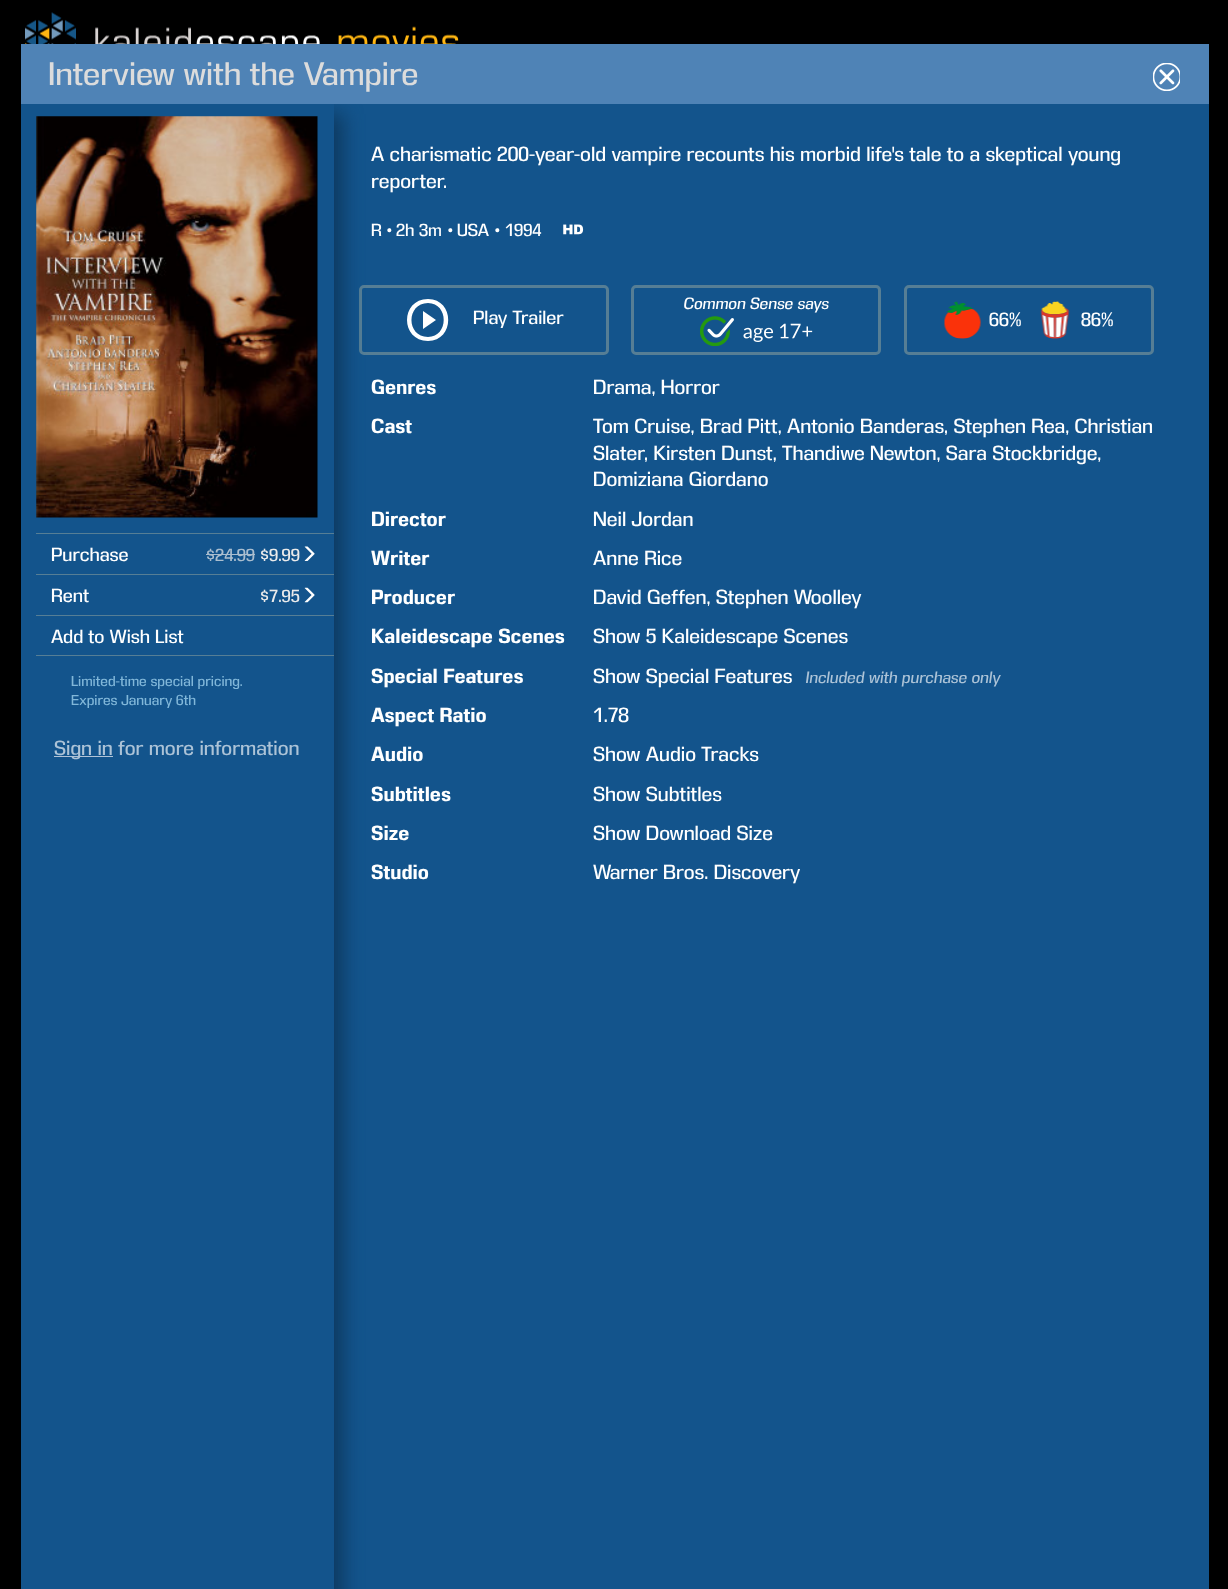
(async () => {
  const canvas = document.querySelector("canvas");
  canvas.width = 1228;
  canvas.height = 1589;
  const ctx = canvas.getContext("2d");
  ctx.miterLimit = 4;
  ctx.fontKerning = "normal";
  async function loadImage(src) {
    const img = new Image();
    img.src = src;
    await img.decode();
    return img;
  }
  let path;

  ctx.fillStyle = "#000000";
  ctx.fillRect(0, 0, 1228, 1589);
  ctx.drawImage(await loadImage("img/1.png"), 25, 12, 434, 32);
  ctx.fillStyle = "#13548c";
  ctx.fillRect(334, 104, 875, 1485);
  ctx.beginPath();
  ctx.roundRect(360.5, 286.5, 247, 67, 3.5);
  ctx.strokeStyle = "#567e95";
  ctx.lineWidth = 3;
  ctx.stroke();
  ctx.fillStyle = "#0d395f";
  ctx.filter = "blur(9.5px)";
  ctx.beginPath();
  ctx.rect(50, 114, 293, 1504);
  ctx.fill();
  ctx.filter = "none";
  ctx.fillStyle = "#4f83b6";
  ctx.fillRect(21, 44, 1188, 60);
  ctx.drawImage(await loadImage("img/2.png"), 1153, 63, 27, 28);
  ctx.fillStyle = "#13548c";
  ctx.fillRect(21, 104, 313, 1485);
  ctx.drawImage(await loadImage("img/3.png"), 36, 116, 282, 402);
  ctx.fillStyle = "#567e95";
  ctx.fillRect(36, 533, 298, 1);
  ctx.fillStyle = "#aabecf";
  ctx.fillRect(206, 554, 49, 1);
  ctx.drawImage(await loadImage("img/4.png"), 304, 546, 11, 15);
  ctx.fillStyle = "#567e95";
  ctx.fillRect(36, 574, 298, 1);
  ctx.drawImage(await loadImage("img/5.png"), 304, 587, 11, 16);
  for (const [x, y, w, h, color] of [
    [36, 615, 298, 1, "#567e95"],
    [36, 655, 298, 1, "#567e95"],
    [54, 756, 59, 1, "#b0c3d7"],
  ]) {
    ctx.fillStyle = color;
    ctx.fillRect(x, y, w, h);
  }
  ctx.drawImage(await loadImage("img/6.png"), 563, 224, 21, 11);
  ctx.beginPath();
  ctx.roundRect(632.5, 286.5, 247, 67, 3.5);
  ctx.stroke();
  ctx.drawImage(await loadImage("img/7.png"), 700, 316, 113, 30);
  ctx.fillStyle = "#ffffff";
  path = new Path2D("M423 329L436 320L423 311ZM428 299C400 299 400 341 428 341C455 341 455 299 428 299ZM428 337C406 337 406 303 428 303C449 303 449 337 428 337Z");
  ctx.fill(path);
  ctx.beginPath();
  ctx.roundRect(905.5, 286.5, 247, 67, 3.5);
  ctx.stroke();
  ctx.drawImage(await loadImage("img/8.png"), 944, 301, 37, 38);
  ctx.drawImage(await loadImage("img/9.png"), 1040, 301, 30, 38);
  ctx.font = "30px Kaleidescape";
  ctx.fillStyle = "#dcdcdc";
  ctx.fillText("Interview with the Vampire", 48, 85);
  ctx.font = "17.5px Kaleidescape";
  ctx.fillStyle = "#ffffff";
  ctx.fillText("Purchase", 51, 561);
  ctx.font = "16px Kaleidescape";
  ctx.fillStyle = "#aabecf";
  ctx.fillText("$24.99", 206, 561);
  ctx.fillStyle = "#ebebeb";
  ctx.fillText("$9.99", 260, 561);
  ctx.font = "17.5px Kaleidescape";
  ctx.fillStyle = "#ffffff";
  ctx.fillText("Rent", 51, 602);
  ctx.font = "16px Kaleidescape";
  ctx.fillStyle = "#ebebeb";
  ctx.fillText("$7.95", 260, 602);
  ctx.font = "17.5px Kaleidescape";
  ctx.fillStyle = "#ffffff";
  ctx.fillText("Add to Wish List", 51, 643);
  ctx.font = "13.3px Kaleidescape";
  ctx.fillStyle = "#81b7d9";
  ctx.fillText("Limited-time special pricing.", 71, 686);
  ctx.fillText("Expires January 6th", 71, 705);
  ctx.font = "18.75px Kaleidescape";
  ctx.fillStyle = "#acc3d7";
  ctx.fillText("Sign in for more information", 54, 755);
  ctx.fillStyle = "#ffffff";
  ctx.fillText("A charismatic 200-year-old vampire recounts his morbid life's tale to a skeptical young", 371, 161);
  ctx.fillText("reporter.", 371, 188);
  ctx.font = "16px Kaleidescape";
  for (const [text, x, y] of [
    ["R", 371, 236],
    ["•", 387, 236],
    ["2h 3m", 396, 236],
    ["•", 448, 236],
    ["USA", 457, 236],
    ["•", 495, 236],
    ["1994", 505, 236],
  ]) {
    ctx.fillText(text, x, y);
  }
  ctx.font = "italic 15px Kaleidescape";
  ctx.fillText("Common Sense says", 683, 309);
  ctx.font = "17.5px Kaleidescape";
  for (const [text, x, y] of [
    ["Play Trailer", 473, 324],
    ["66%", 989, 326],
    ["86%", 1081, 326],
  ]) {
    ctx.fillText(text, x, y);
  }
  ctx.font = "bold 18.75px Kaleidescape";
  ctx.fillText("Genres", 371, 394);
  ctx.font = "18.75px Kaleidescape";
  ctx.fillText("Drama, Horror", 593, 394);
  ctx.font = "bold 18.75px Kaleidescape";
  ctx.fillText("Cast", 371, 433);
  ctx.font = "18.75px Kaleidescape";
  for (const [text, x, y] of [
    ["Tom Cruise, Brad Pitt, Antonio Banderas, Stephen Rea, Christian", 593, 433],
    ["Slater", 593, 460],
    [", Kirsten Dunst, Thandiwe Newton, Sara Stockbridge,", 644, 460],
    ["Domiziana Giordano", 593, 486],
  ]) {
    ctx.fillText(text, x, y);
  }
  ctx.font = "bold 18.75px Kaleidescape";
  ctx.fillText("Director", 371, 526);
  ctx.font = "18.75px Kaleidescape";
  ctx.fillText("Neil Jordan", 593, 526);
  ctx.font = "bold 18.75px Kaleidescape";
  ctx.fillText("Writer", 371, 565);
  ctx.font = "18.75px Kaleidescape";
  ctx.fillText("Anne Rice", 593, 565);
  ctx.font = "bold 18.75px Kaleidescape";
  ctx.fillText("Producer", 371, 604);
  ctx.font = "18.75px Kaleidescape";
  ctx.fillText("David Geffen, Stephen Woolley", 593, 604);
  ctx.font = "bold 18.75px Kaleidescape";
  ctx.fillText("Kaleidescape Scenes", 371, 643);
  ctx.font = "18.75px Kaleidescape";
  ctx.fillText("Show 5 Kaleidescape Scenes", 593, 643);
  ctx.font = "bold 18.75px Kaleidescape";
  ctx.fillText("Special Features", 371, 683);
  ctx.font = "18.75px Kaleidescape";
  ctx.fillText("Show Special Features", 593, 683);
  ctx.font = "italic 15px Kaleidescape";
  ctx.fillStyle = "#acc3d7";
  ctx.fillText("Included with purchase only", 805, 683);
  ctx.font = "bold 18.75px Kaleidescape";
  ctx.fillStyle = "#ffffff";
  ctx.fillText("Aspect Ratio", 371, 722);
  ctx.font = "18.75px Kaleidescape";
  ctx.fillText("1.78", 593, 722);
  ctx.font = "bold 18.75px Kaleidescape";
  ctx.fillText("Audio", 371, 761);
  ctx.font = "18.75px Kaleidescape";
  ctx.fillText("Show Audio Tracks", 593, 761);
  ctx.font = "bold 18.75px Kaleidescape";
  ctx.fillText("Subtitles", 371, 801);
  ctx.font = "18.75px Kaleidescape";
  ctx.fillText("Show Subtitles", 593, 801);
  ctx.font = "bold 18.75px Kaleidescape";
  ctx.fillText("Size", 371, 840);
  ctx.font = "18.75px Kaleidescape";
  ctx.fillText("Show Download Size", 593, 840);
  ctx.font = "bold 18.75px Kaleidescape";
  ctx.fillText("Studio", 371, 879);
  ctx.font = "18.75px Kaleidescape";
  ctx.fillText("Warner Bros. Discovery", 593, 879);
})();
